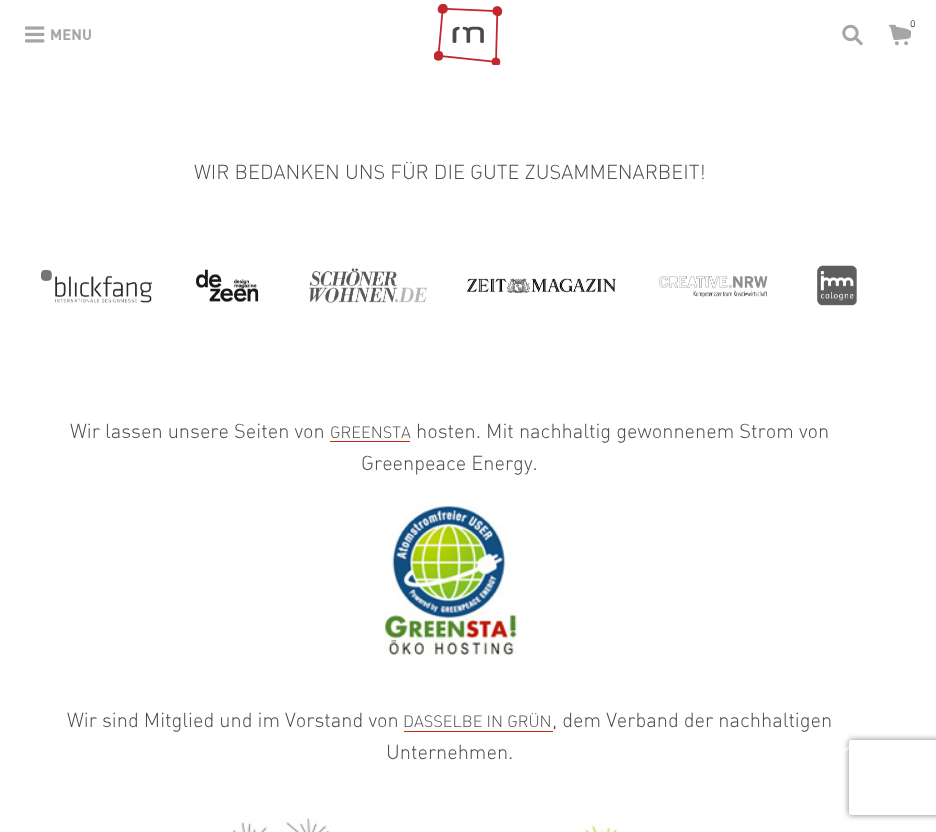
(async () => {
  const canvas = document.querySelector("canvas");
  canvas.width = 936;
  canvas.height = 832;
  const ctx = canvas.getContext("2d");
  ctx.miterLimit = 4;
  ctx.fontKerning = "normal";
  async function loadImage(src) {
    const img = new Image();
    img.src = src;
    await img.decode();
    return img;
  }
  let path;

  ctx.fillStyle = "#ffffff";
  ctx.fillRect(0, 0, 936, 832);
  ctx.drawImage(await loadImage("img/1.png"), 434, 4, 69, 61);
  ctx.drawImage(await loadImage("img/2.png"), 842, 24, 21, 22);
  ctx.drawImage(await loadImage("img/3.png"), 889, 24, 22, 22);
  ctx.beginPath();
  ctx.arc(912.5, 22.5, 8.5, 0, Math.PI * 2);
  ctx.fill();
  ctx.drawImage(await loadImage("img/4.png"), 25, 26, 20, 17);
  ctx.save();
  path = new Path2D("M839 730H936V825H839ZM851.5 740H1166.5C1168 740 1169 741 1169 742.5V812.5C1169 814 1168 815 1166.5 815H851.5C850 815 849 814 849 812.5V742.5C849 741 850 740 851.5 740Z");
  ctx.clip(path, "evenodd");
  ctx.fillStyle = "#808080";
  ctx.filter = "blur(3px)";
  ctx.beginPath();
  ctx.roundRect(849, 740, 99, 75, 2.5);
  ctx.fill();
  ctx.filter = "none";
  ctx.restore();
  ctx.fillStyle = "rgba(255, 255, 255, 0.5)";
  path = new Path2D("M863 755L864.5 754L852.5 742L840.5 754L842 755L852.5 745Z");
  ctx.fill(path);
  ctx.drawImage(await loadImage("img/5.png"), 41, 265, 816, 41);
  ctx.fillStyle = "#c1270d";
  ctx.fillRect(330, 441, 80, 1);
  ctx.drawImage(await loadImage("img/6.png"), 384, 505, 133, 150);
  ctx.fillRect(404, 731, 149, 1);
  ctx.drawImage(await loadImage("img/7.png"), 232, 818, 388, 14);
  ctx.font = "300 11px DIN";
  ctx.fillStyle = "#000000";
  ctx.fillText("0", 910, 27);
  ctx.font = "bold 15px DIN";
  ctx.fillStyle = "#a6a6a6";
  ctx.fillText("MENU", 50, 40);
  ctx.font = "300 20px DIN";
  ctx.fillStyle = "#4d4d4d";
  ctx.fillText("WIR BEDANKEN UNS FÜR DIE GUTE ZUSAMMENARBEIT!", 194, 179);
  ctx.fillText("Wir lassen unsere Seiten von", 70, 438);
  ctx.font = "300 16.25px DIN";
  ctx.fillText("GREENSTA", 330, 438);
  ctx.font = "300 20px DIN";
  for (const [text, x, y] of [
    ["hosten. Mit nachhaltig gewonnenem Strom von", 416, 438],
    ["Greenpeace Energy.", 361, 470],
    ["Wir sind Mitglied und im Vorstand von", 67, 727],
  ]) {
    ctx.fillText(text, x, y);
  }
  ctx.font = "300 16.25px DIN";
  ctx.fillText("DASSELBE IN GRÜN", 403, 727);
  ctx.font = "300 20px DIN";
  ctx.fillText(", dem Verband der nachhaltigen", 552, 727);
  ctx.fillText("Unternehmen.", 386, 759);
})();
